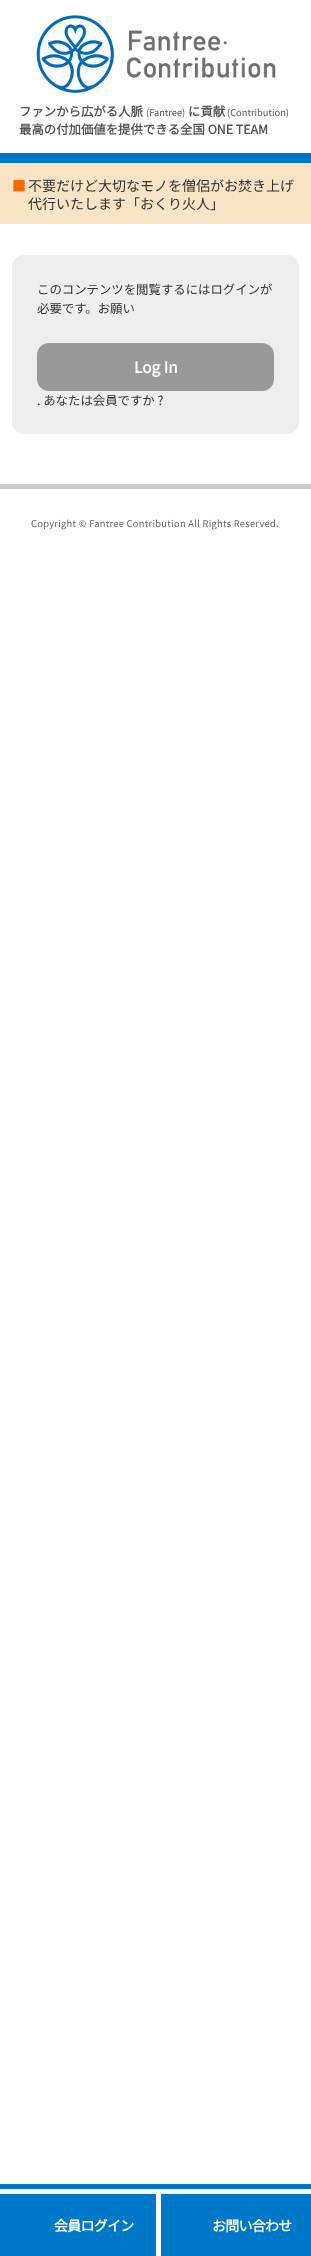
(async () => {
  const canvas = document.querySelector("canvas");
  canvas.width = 311;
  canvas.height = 2256;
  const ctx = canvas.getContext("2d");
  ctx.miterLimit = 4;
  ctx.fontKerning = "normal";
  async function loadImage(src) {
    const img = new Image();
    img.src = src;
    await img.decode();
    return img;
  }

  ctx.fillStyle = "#ffffff";
  ctx.fillRect(0, 0, 311, 2256);
  ctx.fillStyle = "#0078ca";
  ctx.fillRect(0, 153, 311, 10);
  ctx.drawImage(await loadImage("img/1.png"), 36, 15, 240, 78);
  ctx.fillStyle = "#f8e3c5";
  ctx.fillRect(0, 163, 311, 61);
  ctx.fillStyle = "#eeeeee";
  ctx.beginPath();
  ctx.roundRect(12, 255, 287, 179, 12);
  ctx.fill();
  ctx.fillStyle = "#999999";
  ctx.beginPath();
  ctx.roundRect(37, 343, 237, 48, 12);
  ctx.fill();
  for (const [x, y, w, h, color] of [
    [0, 484, 311, 5, "#cccccc"],
    [0, 2184, 311, 5, "#0078ca"],
    [0, 2194, 156, 62, "#0078ca"],
    [161, 2194, 150, 62, "#0078ca"],
  ]) {
    ctx.fillStyle = color;
    ctx.fillRect(x, y, w, h);
  }
  ctx.font = "bold 12.4px Noto Sans JP";
  ctx.fillStyle = "#555555";
  ctx.fillText("ファンから広がる人脈", 19, 116);
  ctx.font = "100 9.3px Noto Sans JP";
  ctx.fillText("(Fantree)", 146, 116);
  ctx.font = "bold 12.4px Noto Sans JP";
  ctx.fillText("に貢献", 188, 116);
  ctx.font = "100 9.3px Noto Sans JP";
  ctx.fillText("(Contribution)", 227, 116);
  ctx.font = "bold 12.4px Noto Sans JP";
  ctx.fillText("最高の付加価値を提供できる全国 ONE TEAM", 19, 134);
  ctx.font = "100 14px Noto Sans JP";
  ctx.fillStyle = "#ff6600";
  ctx.fillText("■", 12, 191);
  ctx.fillStyle = "#333333";
  ctx.fillText("不要だけど大切なモノを僧侶がお焚き上げ", 28, 191);
  ctx.fillText("代行いたします「おくり火人」", 28, 209);
  ctx.font = "100 12.4px Noto Sans JP";
  ctx.fillText("このコンテンツを閲覧するにはログインが", 37, 294);
  ctx.fillText("必要です。お願い", 37, 313);
  ctx.font = "bold 15.5px Noto Sans JP";
  ctx.fillStyle = "#ffffff";
  ctx.fillText("Log In", 134, 373);
  ctx.font = "100 12.4px Noto Sans JP";
  ctx.fillStyle = "#333333";
  ctx.fillText(". あなたは会員ですか ?", 37, 405);
  ctx.letterSpacing = "0.3px";
  ctx.font = "100 9.3px Noto Sans JP";
  ctx.fillStyle = "#666666";
  ctx.fillText("Copyright © Fantree Contribution All Rights Reserved.", 31, 527);
  ctx.letterSpacing = "-0.75px";
  ctx.font = "bold 14px Noto Sans JP";
  ctx.fillStyle = "#ffffff";
  ctx.fillText("会員ログイン", 54, 2231);
  ctx.fillText("お問い合わせ", 212, 2231);
})();
